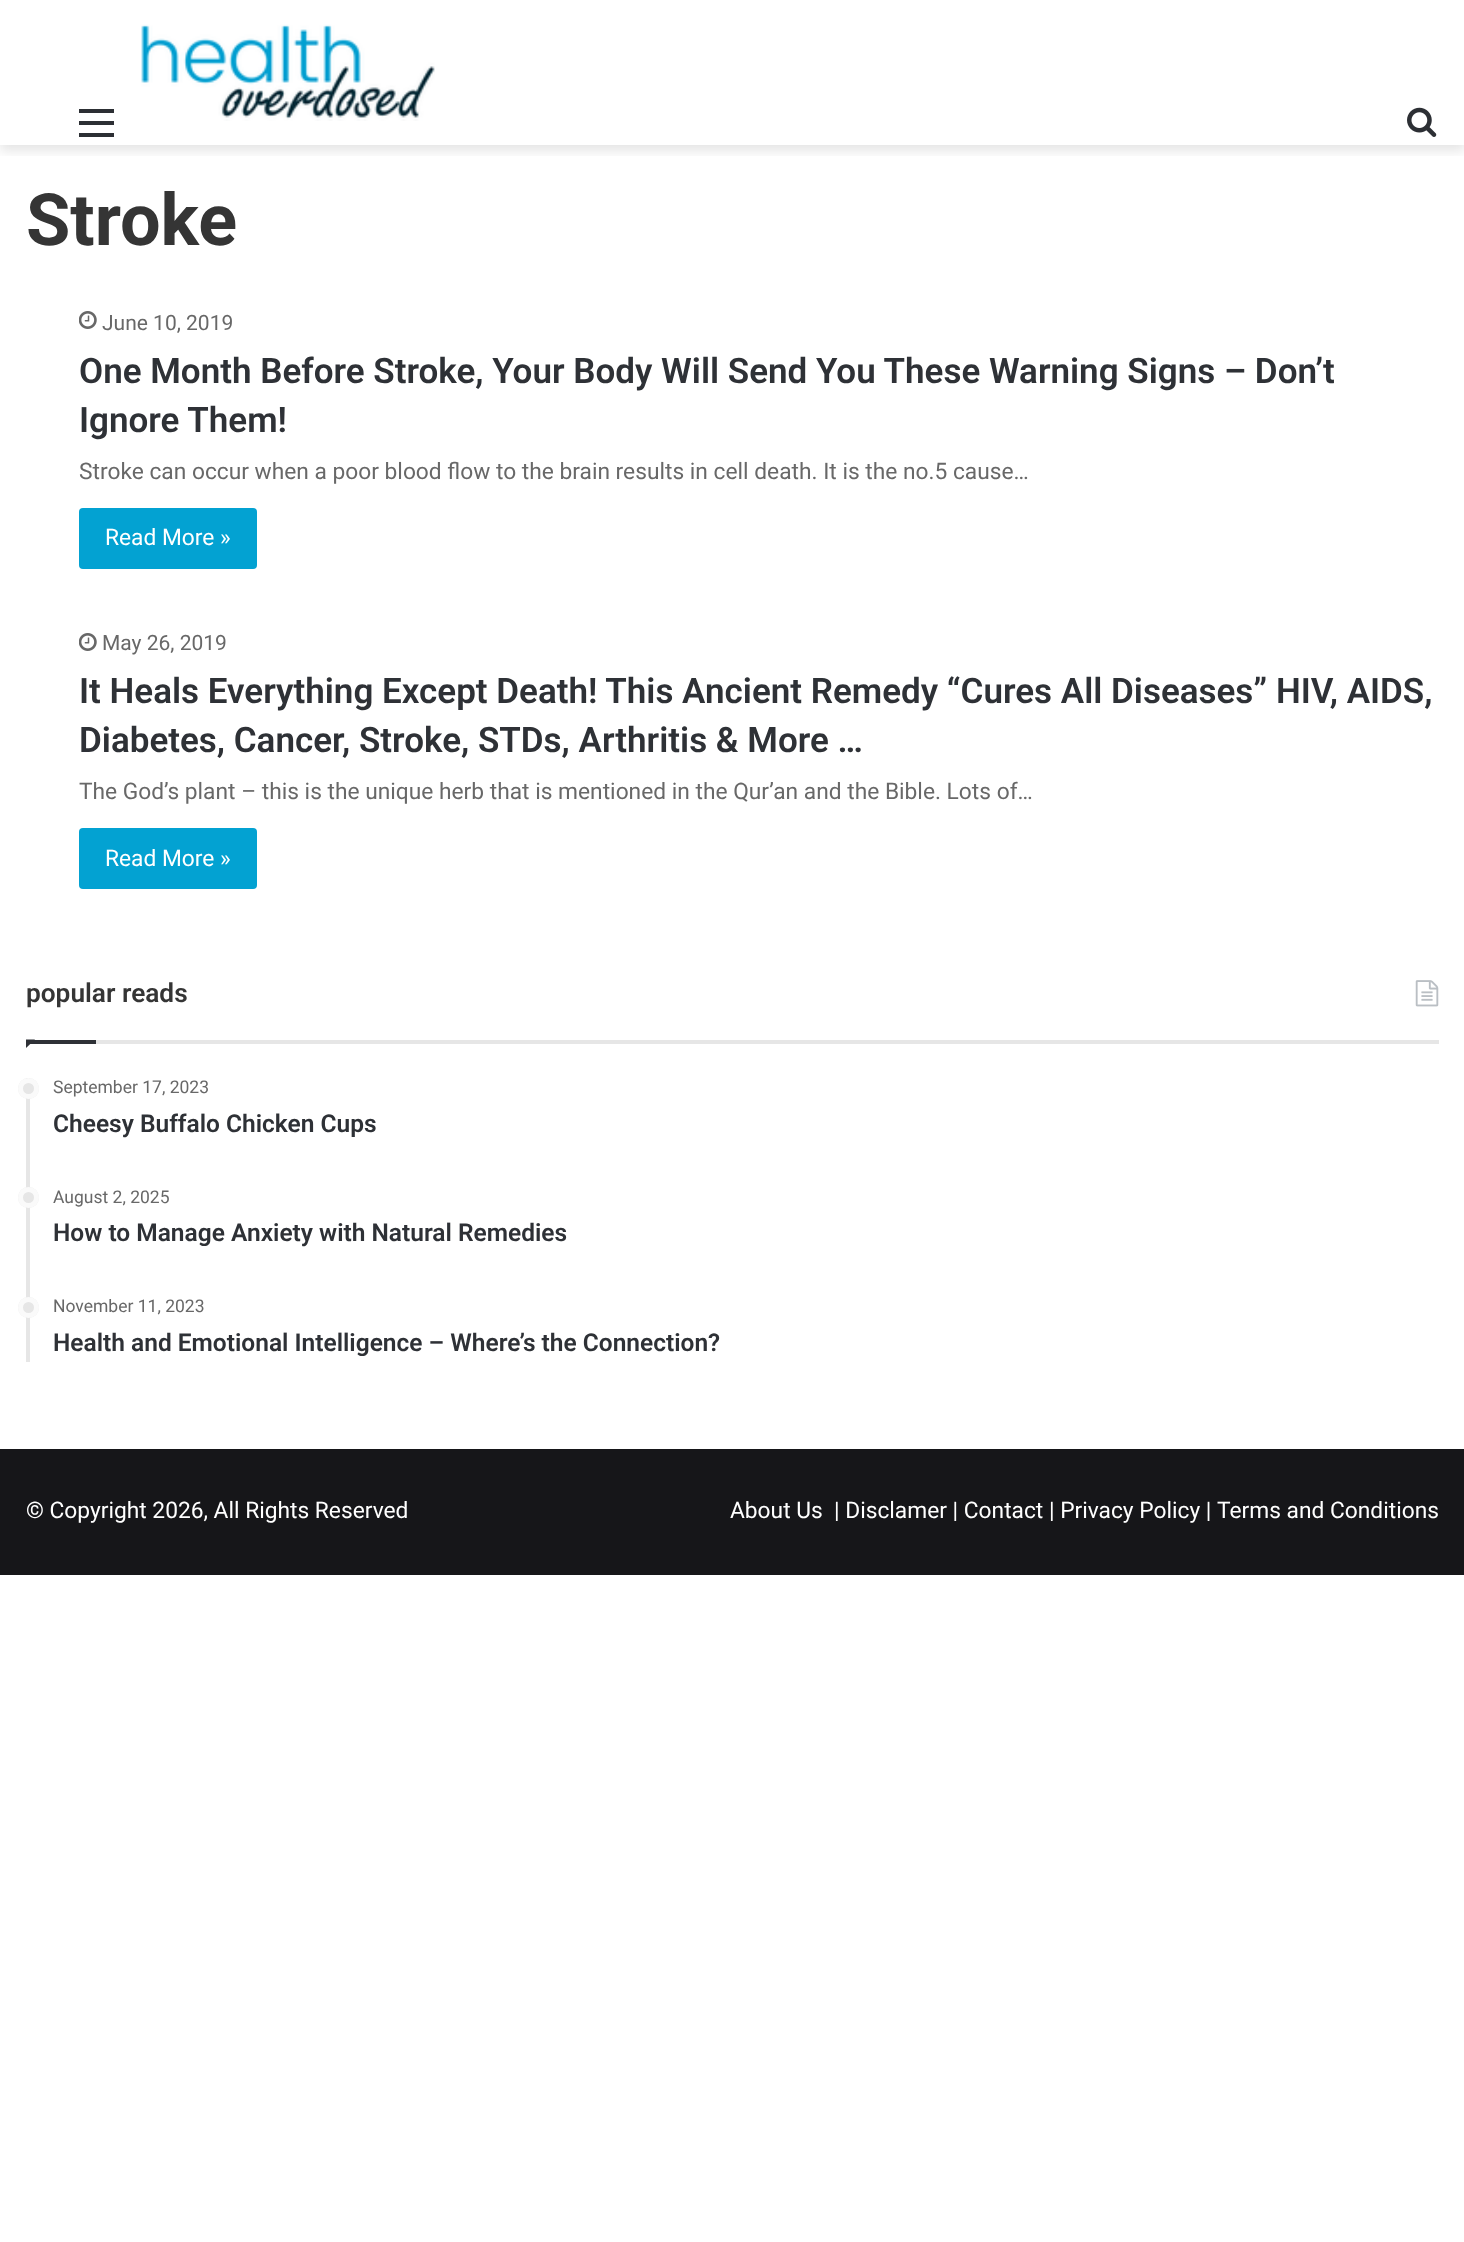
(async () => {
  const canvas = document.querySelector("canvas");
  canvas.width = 1464;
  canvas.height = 2242;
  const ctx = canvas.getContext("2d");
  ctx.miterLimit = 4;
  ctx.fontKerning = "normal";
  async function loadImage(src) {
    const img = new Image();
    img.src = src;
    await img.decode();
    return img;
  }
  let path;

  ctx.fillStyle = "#ffffff";
  ctx.fillRect(0, 0, 1464, 2242);
  ctx.save();
  ctx.beginPath();
  ctx.rect(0, 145, 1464, 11);
  ctx.clip();
  ctx.fillStyle = "rgba(0, 0, 0, 0.1)";
  ctx.filter = "blur(6px)";
  ctx.beginPath();
  ctx.rect(0, 5, 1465, 146);
  ctx.fill();
  ctx.filter = "none";
  ctx.restore();
  for (const [x, y, w, h, color] of [
    [79, 121, 35, 4, "#2c2f34"],
    [79, 109, 35, 4, "#2c2f34"],
    [79, 133, 35, 4, "#2c2f34"],
  ]) {
    ctx.fillStyle = color;
    ctx.fillRect(x, y, w, h);
  }
  ctx.drawImage(await loadImage("img/1.png"), 141, 24, 294, 97);
  ctx.drawImage(await loadImage("img/2.png"), 1407, 107, 30, 30);
  ctx.drawImage(await loadImage("img/3.png"), 79, 311, 18, 18);
  ctx.fillStyle = "#03a2d2";
  ctx.beginPath();
  ctx.roundRect(79, 508, 178, 61, 4);
  ctx.fill();
  ctx.drawImage(await loadImage("img/3.png"), 79, 633, 18, 18);
  ctx.beginPath();
  ctx.roundRect(79, 828, 178, 61, 4);
  ctx.fill();
  ctx.fillStyle = "#e6e6e6";
  ctx.fillRect(96, 1040, 1343, 4);
  ctx.drawImage(await loadImage("img/4.png"), 1415, 980, 24, 27);
  ctx.fillStyle = "#2e3136";
  path = new Path2D("M26 1039.5H35L26 1048Z");
  ctx.fill(path);
  ctx.fillRect(26, 1040, 70, 4);
  ctx.fillStyle = "#e6e6e6";
  ctx.fillRect(26, 1078, 4, 284);
  ctx.beginPath();
  ctx.arc(28.5, 1088.5, 10.5, 0, Math.PI * 2);
  ctx.fill();
  ctx.beginPath();
  ctx.arc(28.5, 1088.5, 8, 0, Math.PI * 2);
  ctx.strokeStyle = "rgba(255, 255, 255, 0.8)";
  ctx.lineWidth = 5;
  ctx.stroke();
  ctx.beginPath();
  ctx.arc(28.5, 1197.5, 10.5, 0, Math.PI * 2);
  ctx.fill();
  ctx.beginPath();
  ctx.arc(28.5, 1197.5, 8, 0, Math.PI * 2);
  ctx.stroke();
  ctx.beginPath();
  ctx.arc(28.5, 1307.5, 10.5, 0, Math.PI * 2);
  ctx.fill();
  ctx.beginPath();
  ctx.arc(28.5, 1307.5, 8, 0, Math.PI * 2);
  ctx.stroke();
  ctx.fillStyle = "#161619";
  ctx.fillRect(0, 1449, 1464, 126);
  ctx.font = "bold 72px Roboto";
  ctx.fillStyle = "#353535";
  ctx.fillText("Stroke", 26, 245);
  ctx.font = "21px Roboto";
  ctx.fillStyle = "#686868";
  ctx.fillText("June 10, 2019", 102, 330);
  ctx.font = "600 35px Roboto";
  ctx.fillStyle = "#2e3136";
  ctx.fillText("One Month Before Stroke, Your Body Will Send You These Warning Signs – Don’t", 79, 383);
  ctx.fillText("Ignore Them!", 79, 432);
  ctx.font = "22.75px Roboto";
  ctx.fillStyle = "#686868";
  ctx.fillText("Stroke can occur when a poor blood flow to the brain results in cell death. It is the no.5 cause…", 79, 479);
  ctx.fillStyle = "#ffffff";
  ctx.fillText("Read More »", 105, 545);
  ctx.font = "21px Roboto";
  ctx.fillStyle = "#686868";
  ctx.fillText("May 26, 2019", 102, 650);
  ctx.font = "600 35px Roboto";
  ctx.fillStyle = "#2e3136";
  ctx.fillText("It Heals Everything Except Death! This Ancient Remedy “Cures All Diseases” HIV, AIDS,", 79, 703);
  ctx.fillText("Diabetes, Cancer, Stroke, STDs, Arthritis & More …", 79, 752);
  ctx.font = "22.75px Roboto";
  ctx.fillStyle = "#686868";
  ctx.fillText("The God’s plant – this is the unique herb that is mentioned in the Qur’an and the Bible. Lots of…", 79, 799);
  ctx.fillStyle = "#ffffff";
  ctx.fillText("Read More »", 105, 866);
  ctx.font = "600 26.25px Roboto";
  ctx.fillStyle = "#353535";
  ctx.fillText("popular reads", 26, 1002);
  ctx.font = "17.5px Roboto";
  ctx.fillStyle = "#686868";
  ctx.fillText("September 17, 2023", 53, 1093);
  ctx.font = "600 24.5px Roboto";
  ctx.fillStyle = "#2e3136";
  ctx.fillText("Cheesy Buffalo Chicken Cups", 53, 1132);
  ctx.font = "17.5px Roboto";
  ctx.fillStyle = "#686868";
  ctx.fillText("August 2, 2025", 53, 1203);
  ctx.font = "600 24.5px Roboto";
  ctx.fillStyle = "#2e3136";
  ctx.fillText("How to Manage Anxiety with Natural Remedies", 53, 1241);
  ctx.font = "17.5px Roboto";
  ctx.fillStyle = "#686868";
  ctx.fillText("November 11, 2023", 53, 1312);
  ctx.font = "600 24.5px Roboto";
  ctx.fillStyle = "#2e3136";
  ctx.fillText("Health and Emotional Intelligence – Where’s the Connection?", 53, 1351);
  ctx.font = "22.75px Roboto";
  ctx.fillStyle = "#ffffff";
  for (const [text, x, y] of [
    ["© Copyright 2026, All Rights Reserved", 26, 1518],
    ["About Us", 730, 1518],
    ["| Disclamer | Contact | Privacy Policy |", 834, 1518],
    ["Terms and Conditions", 1217, 1518],
  ]) {
    ctx.fillText(text, x, y);
  }
})();
